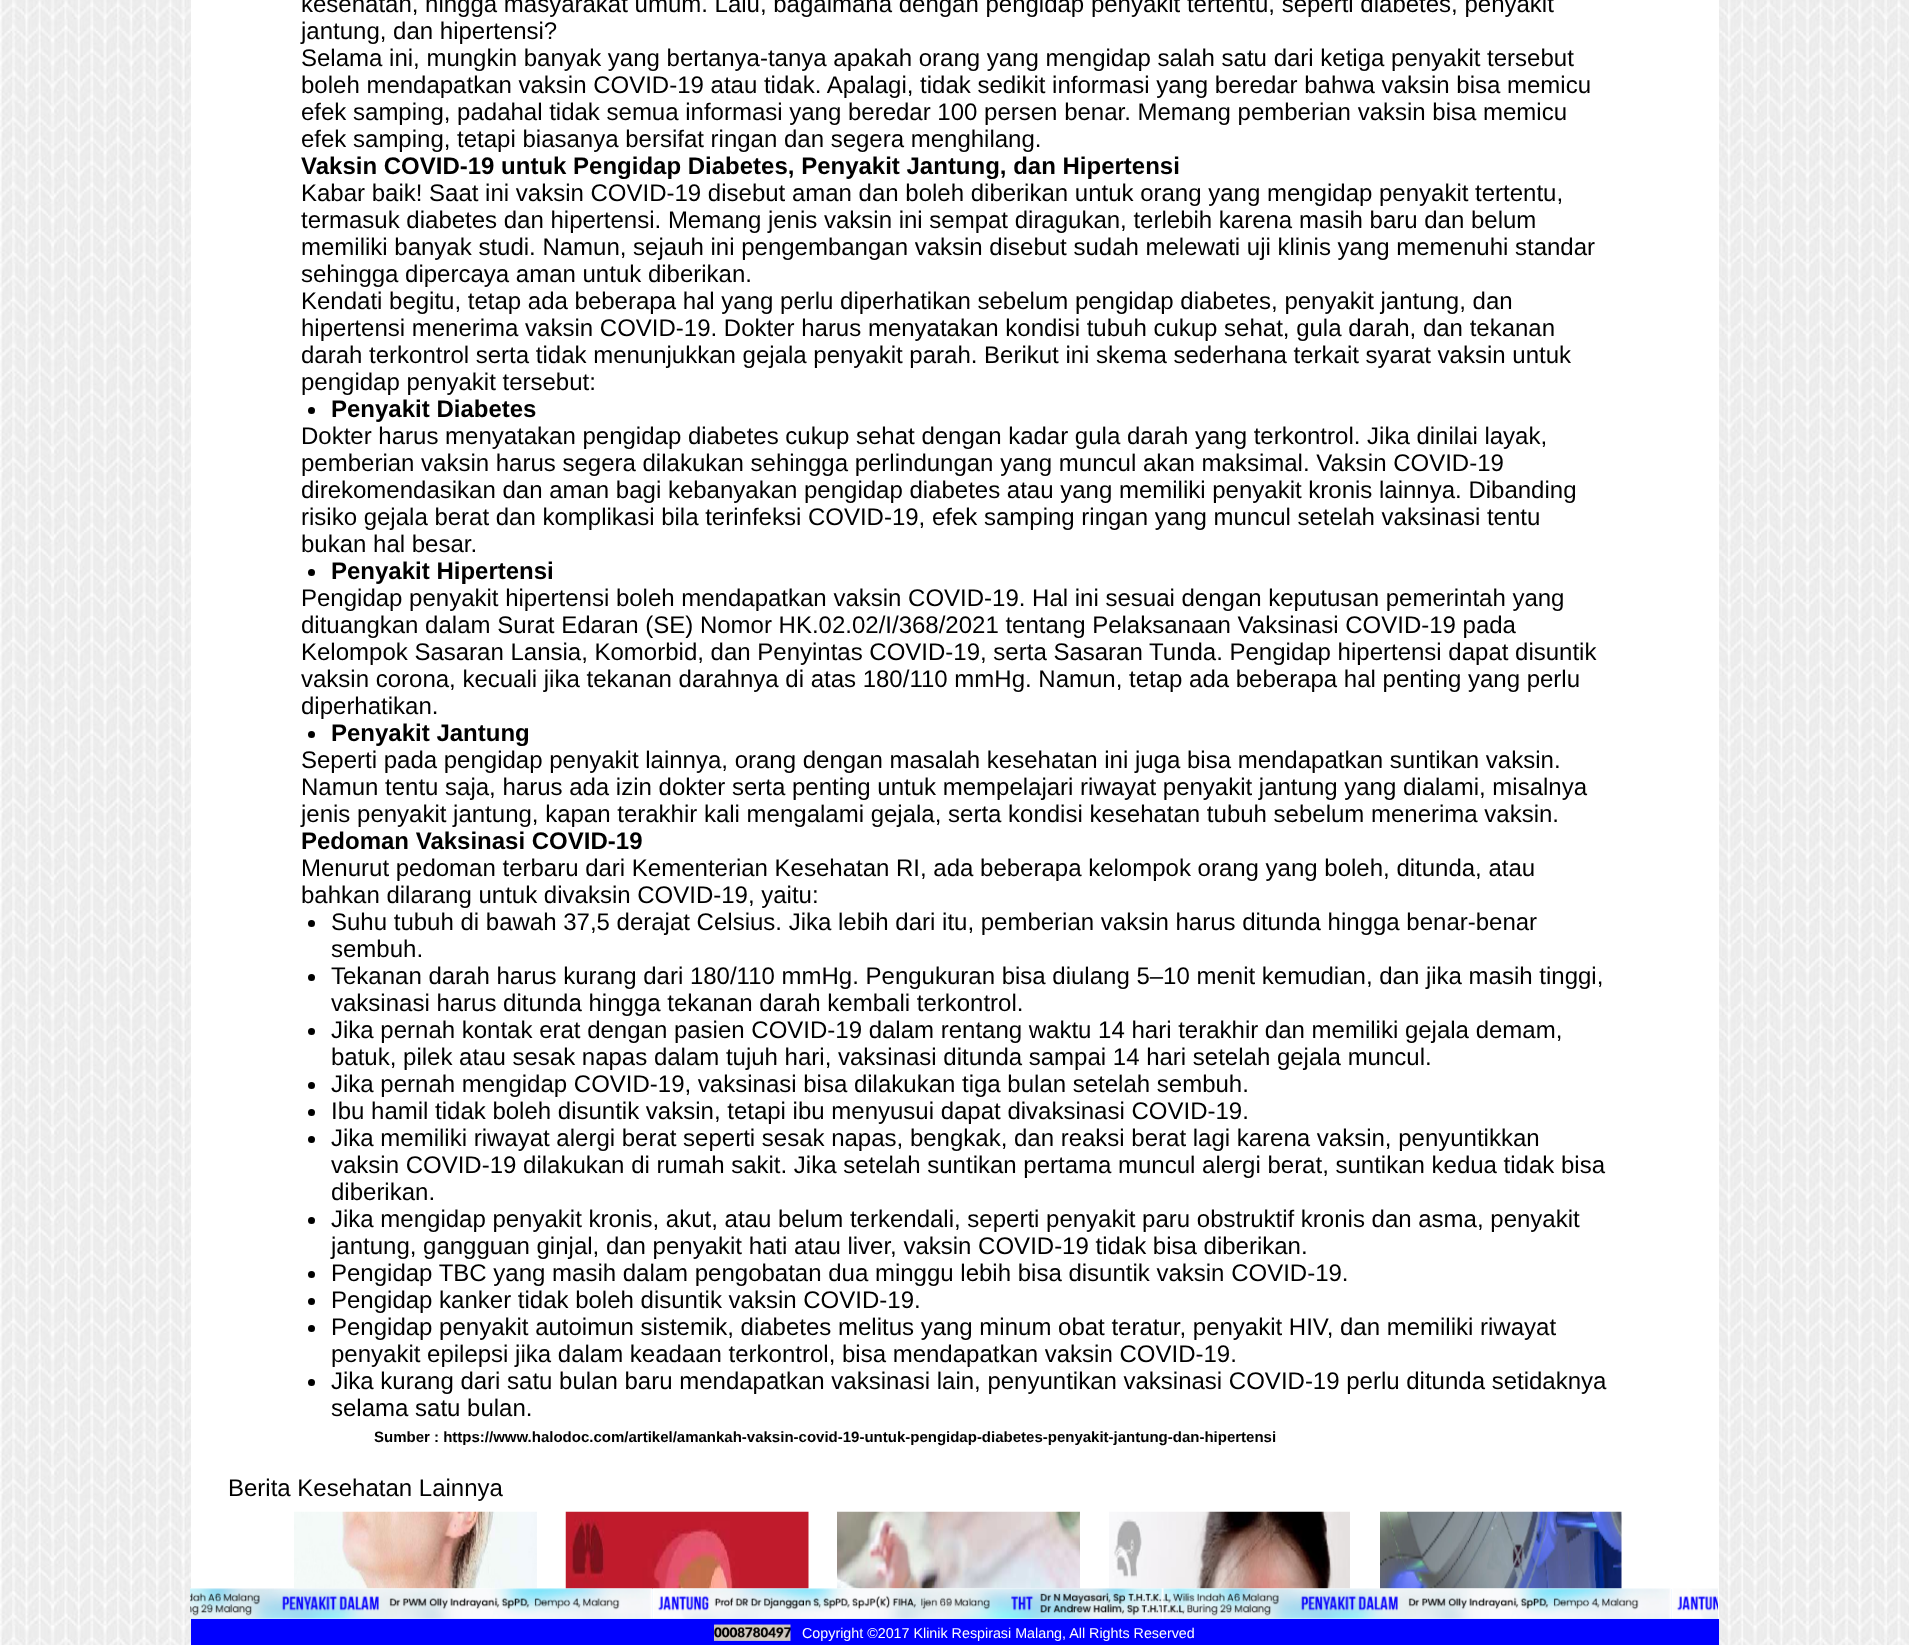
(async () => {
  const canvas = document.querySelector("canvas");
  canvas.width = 1909;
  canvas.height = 1645;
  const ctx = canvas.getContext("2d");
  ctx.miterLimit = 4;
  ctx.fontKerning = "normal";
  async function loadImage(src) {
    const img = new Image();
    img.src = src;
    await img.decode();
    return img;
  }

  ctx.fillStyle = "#ffffff";
  ctx.fillRect(0, 0, 1909, 1645);
  ctx.drawImage(await loadImage("img/1.png"), 0, 0, 1909, 1645);
  ctx.fillRect(191, 0, 1528, 1619);
  ctx.fillStyle = "#000000";
  ctx.beginPath();
  ctx.arc(311.5, 410.5, 3.5, 0, Math.PI * 2);
  ctx.fill();
  ctx.beginPath();
  ctx.arc(311.5, 572.5, 3.5, 0, Math.PI * 2);
  ctx.fill();
  ctx.beginPath();
  ctx.arc(311.5, 734.5, 3.5, 0, Math.PI * 2);
  ctx.fill();
  ctx.beginPath();
  ctx.arc(311.5, 923.5, 3.5, 0, Math.PI * 2);
  ctx.fill();
  ctx.beginPath();
  ctx.arc(311.5, 977.5, 3.5, 0, Math.PI * 2);
  ctx.fill();
  ctx.beginPath();
  ctx.arc(311.5, 1031.5, 3.5, 0, Math.PI * 2);
  ctx.fill();
  ctx.beginPath();
  ctx.arc(311.5, 1085.5, 3.5, 0, Math.PI * 2);
  ctx.fill();
  ctx.beginPath();
  ctx.arc(311.5, 1112.5, 3.5, 0, Math.PI * 2);
  ctx.fill();
  ctx.beginPath();
  ctx.arc(311.5, 1139.5, 3.5, 0, Math.PI * 2);
  ctx.fill();
  ctx.beginPath();
  ctx.arc(311.5, 1220.5, 3.5, 0, Math.PI * 2);
  ctx.fill();
  ctx.beginPath();
  ctx.arc(311.5, 1274.5, 3.5, 0, Math.PI * 2);
  ctx.fill();
  ctx.beginPath();
  ctx.arc(311.5, 1301.5, 3.5, 0, Math.PI * 2);
  ctx.fill();
  ctx.beginPath();
  ctx.arc(311.5, 1328.5, 3.5, 0, Math.PI * 2);
  ctx.fill();
  ctx.beginPath();
  ctx.arc(311.5, 1382.5, 3.5, 0, Math.PI * 2);
  ctx.fill();
  ctx.drawImage(await loadImage("img/2.png"), 294, 1511, 243, 78);
  ctx.drawImage(await loadImage("img/3.png"), 565, 1511, 244, 78);
  ctx.drawImage(await loadImage("img/4.png"), 837, 1511, 243, 78);
  ctx.drawImage(await loadImage("img/5.png"), 1109, 1511, 241, 78);
  ctx.drawImage(await loadImage("img/6.png"), 1380, 1511, 242, 78);
  ctx.fillStyle = "#d4eaff";
  ctx.fillRect(191, 1589, 1527, 30);
  ctx.drawImage(await loadImage("img/8.png"), 652, 1588, 510, 31);
  ctx.drawImage(await loadImage("img/7.png"), 190, 1588, 463, 31);
  ctx.drawImage(await loadImage("img/9.png"), 1162, 1588, 510, 31);
  ctx.drawImage(await loadImage("img/10.png"), 1671, 1588, 47, 31);
  ctx.fillStyle = "#0000ff";
  ctx.fillRect(191, 1619, 1528, 26);
  ctx.drawImage(await loadImage("img/11.png"), 714, 1624, 77, 17);
  ctx.font = "24px Liberation Sans";
  ctx.fillStyle = "#000000";
  for (const [text, x, y] of [
    ["kesehatan, hingga masyarakat umum. Lalu, bagaimana dengan pengidap penyakit tertentu, seperti diabetes, penyakit", 301, 12],
    ["jantung, dan hipertensi?", 301, 39],
    ["Selama ini, mungkin banyak yang bertanya-tanya apakah orang yang mengidap salah satu dari ketiga penyakit tersebut", 301, 66],
    ["boleh mendapatkan vaksin COVID-19 atau tidak. Apalagi, tidak sedikit informasi yang beredar bahwa vaksin bisa memicu", 301, 93],
    ["efek samping, padahal tidak semua informasi yang beredar 100 persen benar. Memang pemberian vaksin bisa memicu", 301, 120],
    ["efek samping, tetapi biasanya bersifat ringan dan segera menghilang.", 301, 147],
  ]) {
    ctx.fillText(text, x, y);
  }
  ctx.font = "bold 24px Liberation Sans";
  ctx.fillText("Vaksin COVID-19 untuk Pengidap Diabetes, Penyakit Jantung, dan Hipertensi", 301, 174);
  ctx.font = "24px Liberation Sans";
  for (const [text, x, y] of [
    ["Kabar baik! Saat ini vaksin COVID-19 disebut aman dan boleh diberikan untuk orang yang mengidap penyakit tertentu,", 301, 201],
    ["termasuk diabetes dan hipertensi. Memang jenis vaksin ini sempat diragukan, terlebih karena masih baru dan belum", 301, 228],
    ["memiliki banyak studi. Namun, sejauh ini pengembangan vaksin disebut sudah melewati uji klinis yang memenuhi standar", 301, 255],
    ["sehingga dipercaya aman untuk diberikan.", 301, 282],
    ["Kendati begitu, tetap ada beberapa hal yang perlu diperhatikan sebelum pengidap diabetes, penyakit jantung, dan", 301, 309],
    ["hipertensi menerima vaksin COVID-19. Dokter harus menyatakan kondisi tubuh cukup sehat, gula darah, dan tekanan", 301, 336],
    ["darah terkontrol serta tidak menunjukkan gejala penyakit parah. Berikut ini skema sederhana terkait syarat vaksin untuk", 301, 363],
    ["pengidap penyakit tersebut:", 301, 390],
  ]) {
    ctx.fillText(text, x, y);
  }
  ctx.font = "bold 24px Liberation Sans";
  ctx.fillText("Penyakit Diabetes", 331, 417);
  ctx.font = "24px Liberation Sans";
  for (const [text, x, y] of [
    ["Dokter harus menyatakan pengidap diabetes cukup sehat dengan kadar gula darah yang terkontrol. Jika dinilai layak,", 301, 444],
    ["pemberian vaksin harus segera dilakukan sehingga perlindungan yang muncul akan maksimal. Vaksin COVID-19", 301, 471],
    ["direkomendasikan dan aman bagi kebanyakan pengidap diabetes atau yang memiliki penyakit kronis lainnya. Dibanding", 301, 498],
    ["risiko gejala berat dan komplikasi bila terinfeksi COVID-19, efek samping ringan yang muncul setelah vaksinasi tentu", 301, 525],
    ["bukan hal besar.", 301, 552],
  ]) {
    ctx.fillText(text, x, y);
  }
  ctx.font = "bold 24px Liberation Sans";
  ctx.fillText("Penyakit Hipertensi", 331, 579);
  ctx.font = "24px Liberation Sans";
  for (const [text, x, y] of [
    ["Pengidap penyakit hipertensi boleh mendapatkan vaksin COVID-19. Hal ini sesuai dengan keputusan pemerintah yang", 301, 606],
    ["dituangkan dalam Surat Edaran (SE) Nomor HK.02.02/I/368/2021 tentang Pelaksanaan Vaksinasi COVID-19 pada", 301, 633],
    ["Kelompok Sasaran Lansia, Komorbid, dan Penyintas COVID-19, serta Sasaran Tunda. Pengidap hipertensi dapat disuntik", 301, 660],
    ["vaksin corona, kecuali jika tekanan darahnya di atas 180/110 mmHg. Namun, tetap ada beberapa hal penting yang perlu", 301, 687],
    ["diperhatikan.", 301, 714],
  ]) {
    ctx.fillText(text, x, y);
  }
  ctx.font = "bold 24px Liberation Sans";
  ctx.fillText("Penyakit Jantung", 331, 741);
  ctx.font = "24px Liberation Sans";
  for (const [text, x, y] of [
    ["Seperti pada pengidap penyakit lainnya, orang dengan masalah kesehatan ini juga bisa mendapatkan suntikan vaksin.", 301, 768],
    ["Namun tentu saja, harus ada izin dokter serta penting untuk mempelajari riwayat penyakit jantung yang dialami, misalnya", 301, 795],
    ["jenis penyakit jantung, kapan terakhir kali mengalami gejala, serta kondisi kesehatan tubuh sebelum menerima vaksin.", 301, 822],
  ]) {
    ctx.fillText(text, x, y);
  }
  ctx.font = "bold 24px Liberation Sans";
  ctx.fillText("Pedoman Vaksinasi COVID-19", 301, 849);
  ctx.font = "24px Liberation Sans";
  for (const [text, x, y] of [
    ["Menurut pedoman terbaru dari Kementerian Kesehatan RI, ada beberapa kelompok orang yang boleh, ditunda, atau", 301, 876],
    ["bahkan dilarang untuk divaksin COVID-19, yaitu:", 301, 903],
    ["Suhu tubuh di bawah 37,5 derajat Celsius. Jika lebih dari itu, pemberian vaksin harus ditunda hingga benar-benar", 331, 930],
    ["sembuh.", 331, 957],
    ["Tekanan darah harus kurang dari 180/110 mmHg. Pengukuran bisa diulang 5–10 menit kemudian, dan jika masih tinggi,", 331, 984],
    ["vaksinasi harus ditunda hingga tekanan darah kembali terkontrol.", 331, 1011],
    ["Jika pernah kontak erat dengan pasien COVID-19 dalam rentang waktu 14 hari terakhir dan memiliki gejala demam,", 331, 1038],
    ["batuk, pilek atau sesak napas dalam tujuh hari, vaksinasi ditunda sampai 14 hari setelah gejala muncul.", 331, 1065],
    ["Jika pernah mengidap COVID-19, vaksinasi bisa dilakukan tiga bulan setelah sembuh.", 331, 1092],
    ["Ibu hamil tidak boleh disuntik vaksin, tetapi ibu menyusui dapat divaksinasi COVID-19.", 331, 1119],
    ["Jika memiliki riwayat alergi berat seperti sesak napas, bengkak, dan reaksi berat lagi karena vaksin, penyuntikkan", 331, 1146],
    ["vaksin COVID-19 dilakukan di rumah sakit. Jika setelah suntikan pertama muncul alergi berat, suntikan kedua tidak bisa", 331, 1173],
    ["diberikan.", 331, 1200],
    ["Jika mengidap penyakit kronis, akut, atau belum terkendali, seperti penyakit paru obstruktif kronis dan asma, penyakit", 331, 1227],
    ["jantung, gangguan ginjal, dan penyakit hati atau liver, vaksin COVID-19 tidak bisa diberikan.", 331, 1254],
    ["Pengidap TBC yang masih dalam pengobatan dua minggu lebih bisa disuntik vaksin COVID-19.", 331, 1281],
    ["Pengidap kanker tidak boleh disuntik vaksin COVID-19.", 331, 1308],
    ["Pengidap penyakit autoimun sistemik, diabetes melitus yang minum obat teratur, penyakit HIV, dan memiliki riwayat", 331, 1335],
    ["penyakit epilepsi jika dalam keadaan terkontrol, bisa mendapatkan vaksin COVID-19.", 331, 1362],
    ["Jika kurang dari satu bulan baru mendapatkan vaksinasi lain, penyuntikan vaksinasi COVID-19 perlu ditunda setidaknya", 331, 1389],
    ["selama satu bulan.", 331, 1416],
  ]) {
    ctx.fillText(text, x, y);
  }
  ctx.font = "bold 15px Liberation Sans";
  ctx.fillText("Sumber : https://www.halodoc.com/artikel/amankah-vaksin-covid-19-untuk-pengidap-diabetes-penyakit-jantung-dan-hipertensi", 374, 1442);
  ctx.font = "24px Liberation Sans";
  ctx.fillText("Berita Kesehatan Lainnya", 228, 1496);
  ctx.font = "14.3px Liberation Sans";
  ctx.fillStyle = "#ffffff";
  ctx.fillText("Copyright ©2017 Klinik Respirasi Malang, All Rights Reserved", 802, 1638);
})();
